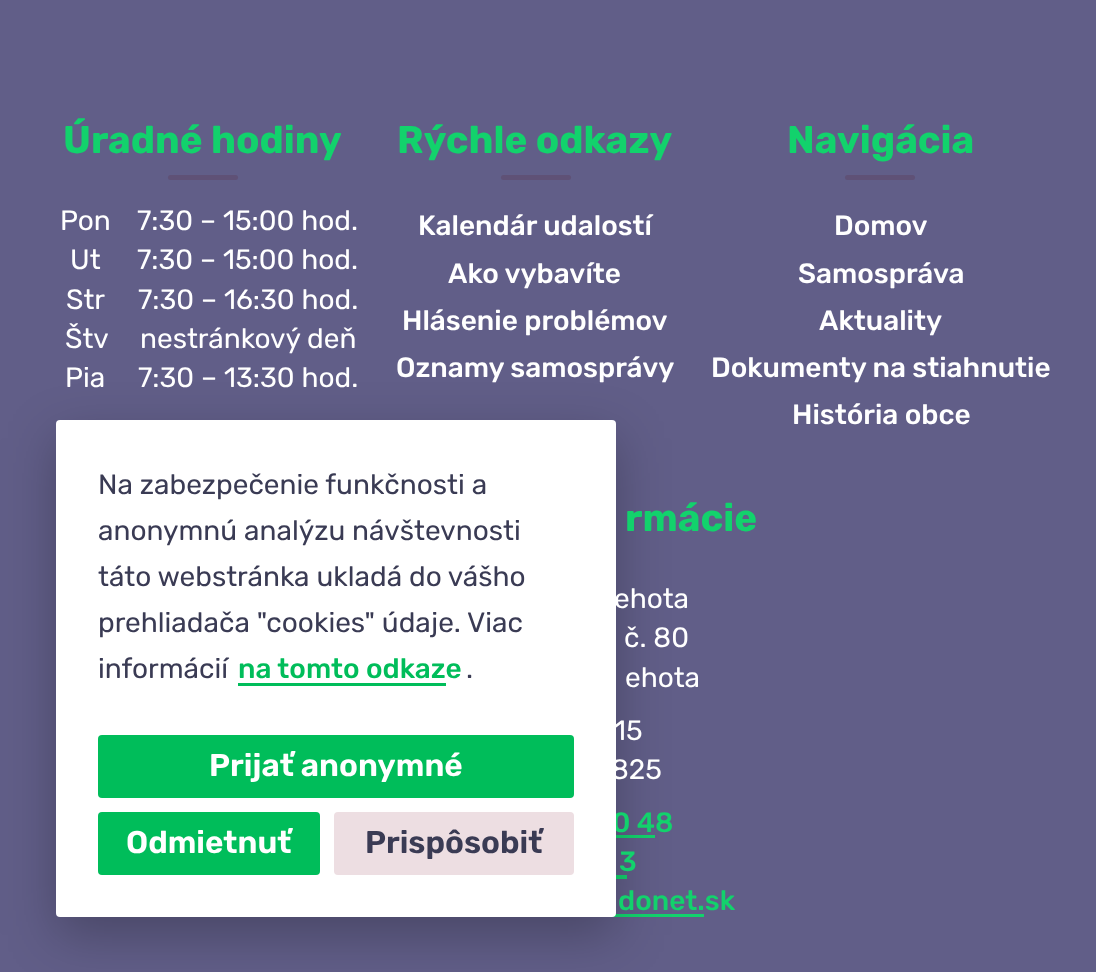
(async () => {
  const canvas = document.querySelector("canvas");
  canvas.width = 1096;
  canvas.height = 972;
  const ctx = canvas.getContext("2d");
  ctx.miterLimit = 4;
  ctx.fontKerning = "normal";

  ctx.fillStyle = "#615e88";
  ctx.fillRect(0, 0, 1096, 972);
  ctx.fillStyle = "#5f5176";
  ctx.beginPath();
  ctx.roundRect(168, 175, 70, 5, 2.5);
  ctx.fill();
  ctx.beginPath();
  ctx.roundRect(501, 175, 70, 5, 2.5);
  ctx.fill();
  ctx.beginPath();
  ctx.roundRect(845, 175, 70, 5, 2.5);
  ctx.fill();
  for (const [x, y, w, h, color] of [
    [616, 835, 39, 3, "#12d26c"],
    [616, 875, 11, 4, "#12d26c"],
    [612, 914, 92, 3, "#12d26c"],
  ]) {
    ctx.fillStyle = color;
    ctx.fillRect(x, y, w, h);
  }
  ctx.fillStyle = "rgba(0, 0, 0, 0.25)";
  ctx.filter = "blur(26px)";
  ctx.beginPath();
  ctx.roundRect(56, 438, 560, 497, 4);
  ctx.fill();
  ctx.filter = "none";
  ctx.font = "bold 38.5px Rubik";
  ctx.fillStyle = "#12d26c";
  ctx.fillText("Úradné hodiny", 63, 153);
  ctx.font = "28px Rubik";
  ctx.fillStyle = "#ffffff";
  for (const [text, x, y] of [
    ["Pon", 60, 230],
    ["7:30 – 15:00 hod.", 137, 230],
    ["Ut", 70, 269],
    ["7:30 – 15:00 hod.", 137, 269],
    ["Str", 66, 309],
    ["7:30 – 16:30 hod.", 138, 309],
    ["Štv", 65, 348],
    ["nestránkový deň", 140, 348],
    ["Pia", 65, 387],
    ["7:30 – 13:30 hod.", 138, 387],
  ]) {
    ctx.fillText(text, x, y);
  }
  ctx.font = "bold 38.5px Rubik";
  ctx.fillStyle = "#12d26c";
  ctx.fillText("Rýchle odkazy", 397, 153);
  ctx.font = "500 28px Rubik";
  ctx.fillStyle = "#ffffff";
  for (const [text, x, y] of [
    ["Kalendár udalostí", 418, 235],
    ["Ako vybavíte", 448, 283],
    ["Hlásenie problémov", 402, 330],
    ["Oznamy samosprávy", 396, 377],
  ]) {
    ctx.fillText(text, x, y);
  }
  ctx.font = "bold 38.5px Rubik";
  ctx.fillStyle = "#12d26c";
  ctx.fillText("Navigácia", 787, 153);
  ctx.font = "500 28px Rubik";
  ctx.fillStyle = "#ffffff";
  for (const [text, x, y] of [
    ["Domov", 834, 235],
    ["Samospráva", 798, 283],
    ["Aktuality", 819, 330],
    ["Dokumenty na stiahnutie", 711, 377],
    ["História obce", 792, 424],
  ]) {
    ctx.fillText(text, x, y);
  }
  ctx.font = "bold 38.5px Rubik";
  ctx.fillStyle = "#12d26c";
  ctx.fillText("rmácie", 625, 531);
  ctx.font = "28px Rubik";
  ctx.fillStyle = "#ffffff";
  for (const [text, x, y] of [
    ["ehota", 614, 608],
    ["č. 80", 624, 647],
    ["ehota", 625, 687],
    ["15", 614, 740],
    ["825", 611, 779],
  ]) {
    ctx.fillText(text, x, y);
  }
  ctx.font = "500 28px Rubik";
  ctx.fillStyle = "#12d26c";
  for (const [text, x, y] of [
    ["0 48", 612, 832],
    ["3", 619, 871],
    ["donet.sk", 618, 910],
  ]) {
    ctx.fillText(text, x, y);
  }
  ctx.fillStyle = "#ffffff";
  ctx.beginPath();
  ctx.roundRect(56, 420, 560, 497, 4);
  ctx.fill();
  ctx.font = "28px Rubik";
  ctx.fillStyle = "#3a3b54";
  for (const [text, x, y] of [
    ["Na zabezpečenie funkčnosti a", 98, 494],
    ["anonymnú analýzu návštevnosti", 98, 540],
    ["táto webstránka ukladá do vášho", 98, 586],
    ["prehliadača \"cookies\" údaje. Viac", 98, 632],
    ["informácií", 98, 678],
  ]) {
    ctx.fillText(text, x, y);
  }
  ctx.font = "500 28px Rubik";
  ctx.fillStyle = "#00bd5a";
  ctx.fillText("na tomto odkaze", 238, 678);
  ctx.fillRect(238, 683, 208, 3);
  ctx.font = "28px Rubik";
  ctx.fillStyle = "#3a3b54";
  ctx.fillText(".", 466, 678);
  ctx.fillStyle = "#00bd5a";
  ctx.beginPath();
  ctx.roundRect(98, 735, 476, 63, 4);
  ctx.fill();
  ctx.font = "600 31.5px Rubik";
  ctx.fillStyle = "#ffffff";
  ctx.fillText("Prijať anonymné", 209, 776);
  ctx.fillStyle = "#00bd5a";
  ctx.beginPath();
  ctx.roundRect(98, 812, 222, 63, 4);
  ctx.fill();
  ctx.fillStyle = "#ffffff";
  ctx.fillText("Odmietnuť", 126, 853);
  ctx.fillStyle = "#eddee2";
  ctx.beginPath();
  ctx.roundRect(334, 812, 240, 63, 4);
  ctx.fill();
  ctx.fillStyle = "#3a3b54";
  ctx.fillText("Prispôsobiť", 365, 853);
})();
